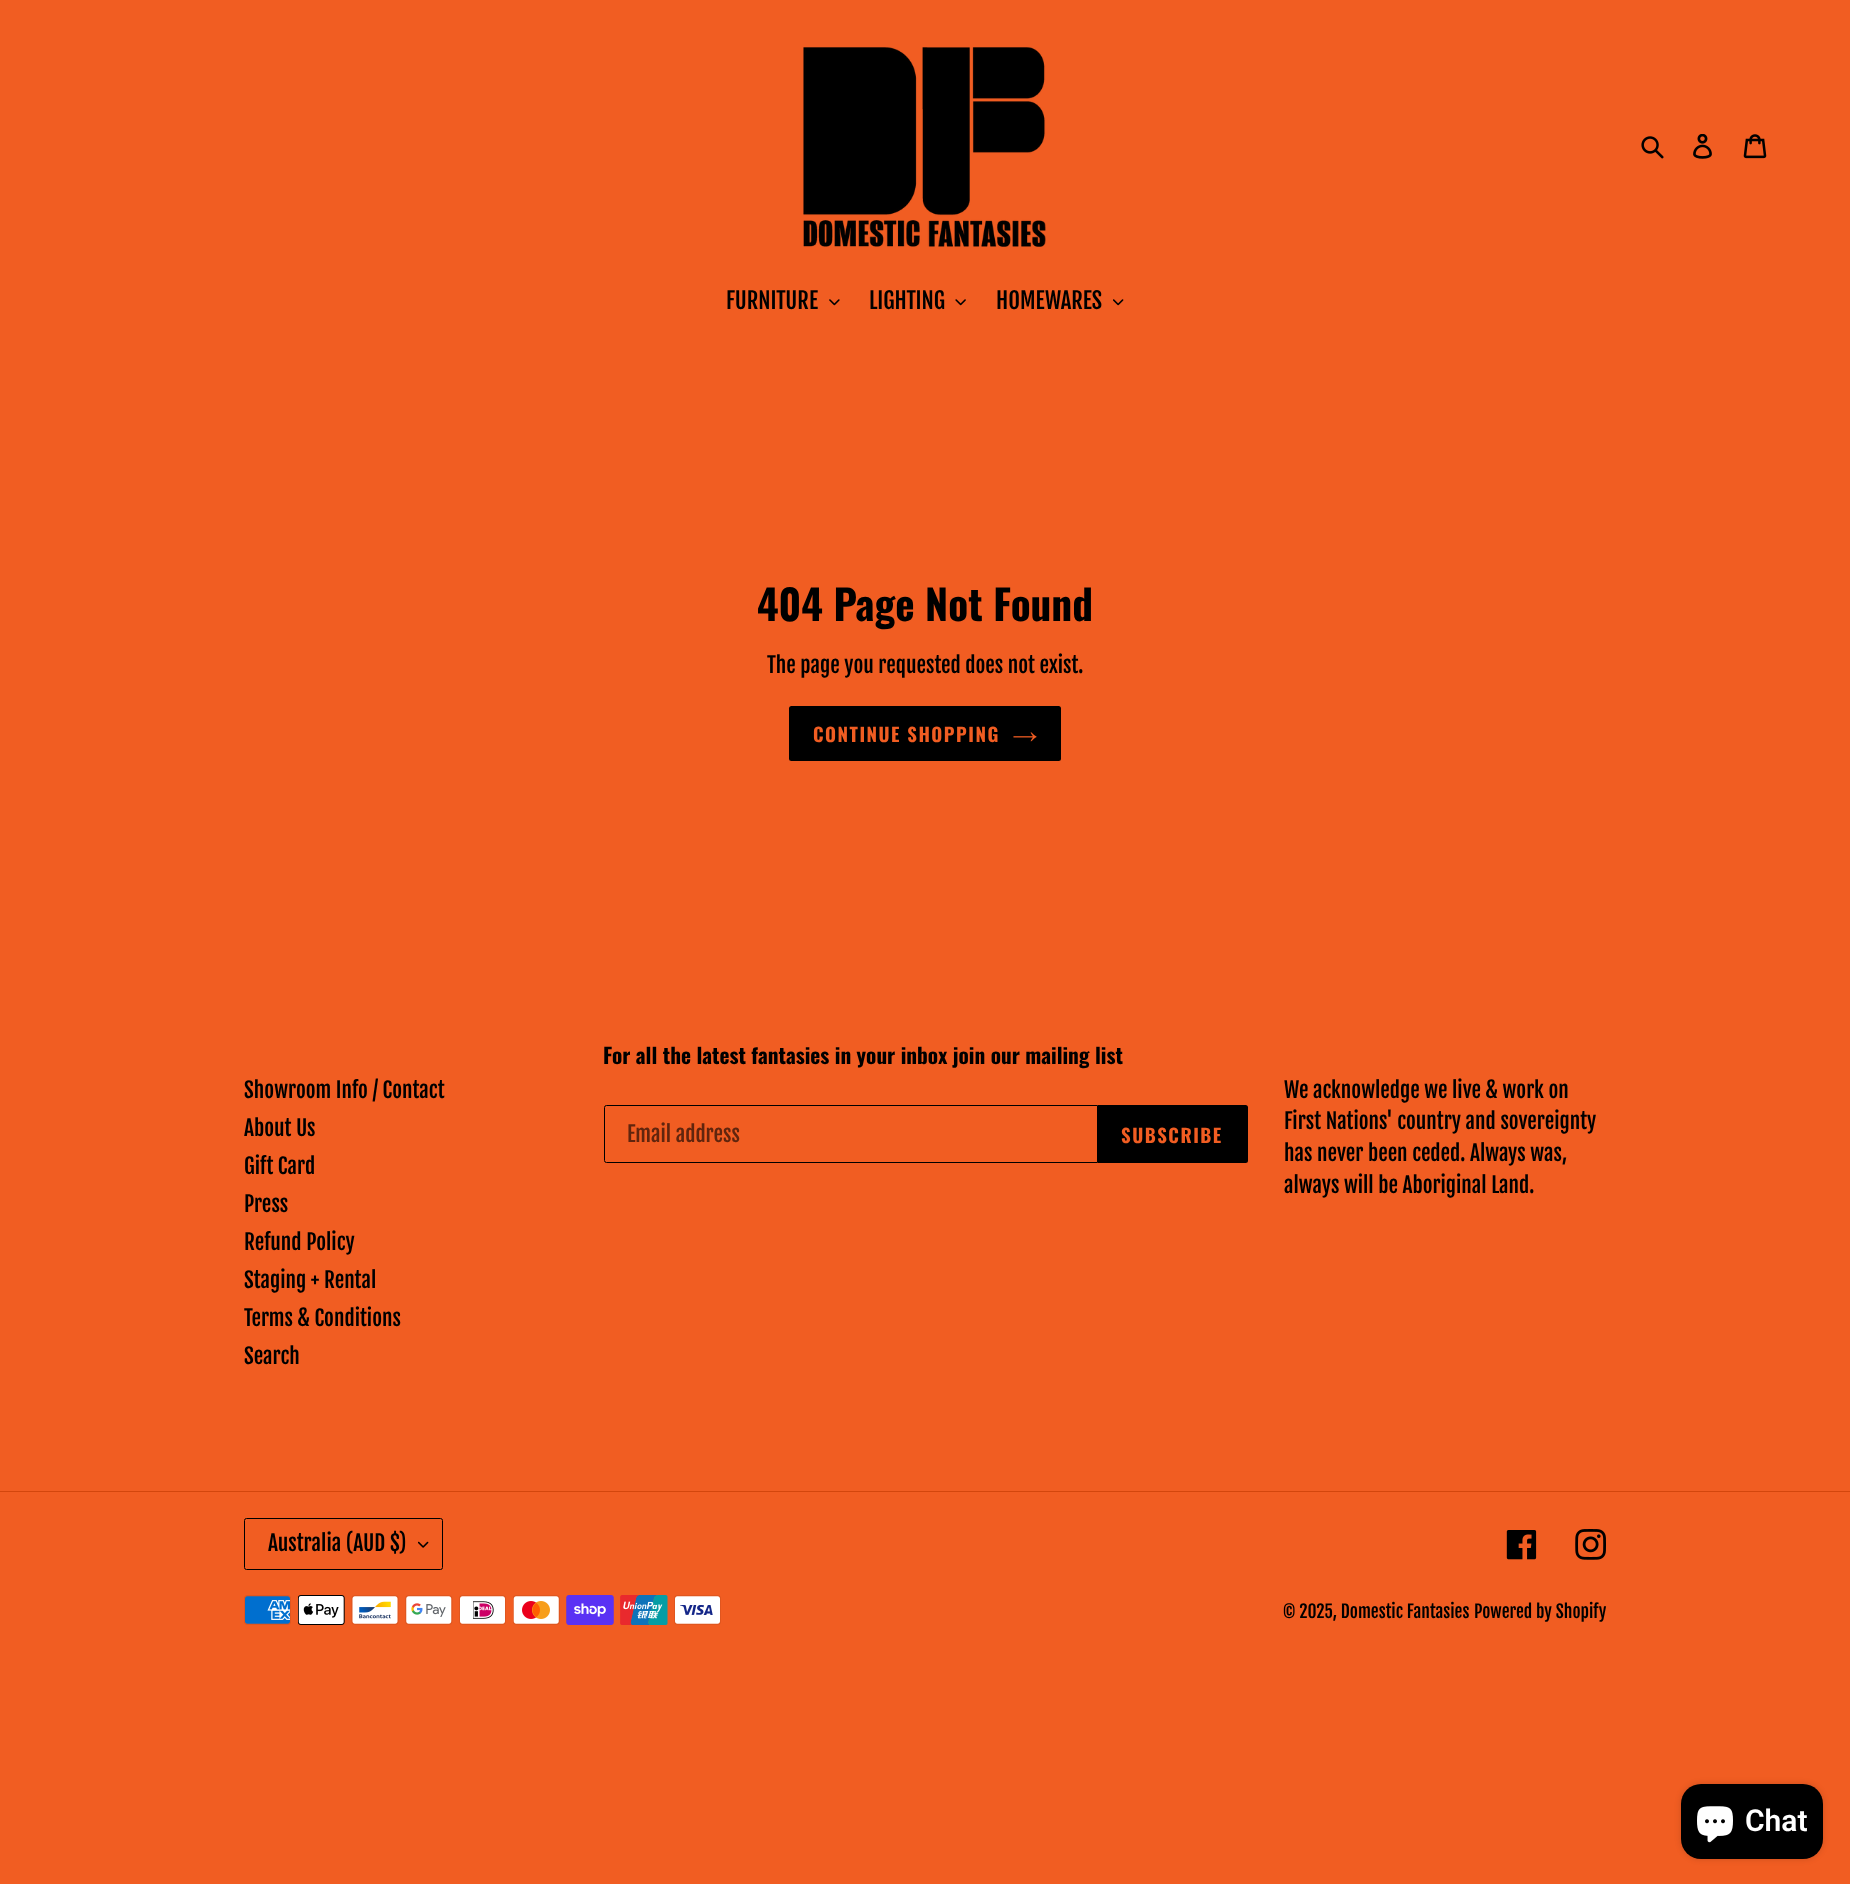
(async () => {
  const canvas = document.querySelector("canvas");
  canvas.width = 1850;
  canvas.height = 1884;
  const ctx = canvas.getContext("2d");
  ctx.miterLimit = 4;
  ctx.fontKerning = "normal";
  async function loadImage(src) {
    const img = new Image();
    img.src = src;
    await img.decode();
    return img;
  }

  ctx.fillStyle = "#f15d22";
  ctx.fillRect(0, 0, 1850, 1884);
  ctx.drawImage(await loadImage("img/1.png"), 803, 47, 243, 200);
  ctx.drawImage(await loadImage("img/2.png"), 1641, 136, 23, 23);
  ctx.drawImage(await loadImage("img/3.png"), 1693, 134, 19, 25);
  ctx.drawImage(await loadImage("img/4.png"), 1743, 134, 24, 25);
  ctx.drawImage(await loadImage("img/5.png"), 829, 299, 11, 7);
  ctx.drawImage(await loadImage("img/6.png"), 955, 299, 11, 7);
  ctx.drawImage(await loadImage("img/7.png"), 1113, 299, 11, 7);
  ctx.fillStyle = "#000000";
  ctx.beginPath();
  ctx.roundRect(789, 706, 272, 55, 2.5);
  ctx.fill();
  ctx.drawImage(await loadImage("img/8.png"), 1013, 732, 24, 10);
  ctx.beginPath();
  ctx.roundRect(604.5, 1105.5, 493, 57, [2, 0, 0, 2]);
  ctx.strokeStyle = "#000000";
  ctx.stroke();
  ctx.beginPath();
  ctx.roundRect(1098, 1105, 150, 58, [0, 2.5, 2.5, 0]);
  ctx.fill();
  ctx.fillStyle = "#d3460d";
  ctx.fillRect(0, 1491, 1850, 1);
  ctx.drawImage(await loadImage("img/9.png"), 418, 1541, 11, 7);
  ctx.beginPath();
  ctx.roundRect(244.5, 1518.5, 198, 51, 2);
  ctx.stroke();
  ctx.drawImage(await loadImage("img/10.png"), 1506, 1530, 31, 30);
  ctx.drawImage(await loadImage("img/11.png"), 1575, 1529, 31, 31);
  ctx.drawImage(await loadImage("img/12.png"), 244, 1595, 47, 30);
  ctx.drawImage(await loadImage("img/13.png"), 298, 1595, 47, 30);
  ctx.drawImage(await loadImage("img/14.png"), 351, 1595, 48, 30);
  ctx.drawImage(await loadImage("img/15.png"), 405, 1595, 48, 30);
  ctx.drawImage(await loadImage("img/16.png"), 459, 1595, 47, 30);
  ctx.drawImage(await loadImage("img/17.png"), 513, 1595, 47, 30);
  ctx.drawImage(await loadImage("img/18.png"), 566, 1595, 48, 30);
  ctx.drawImage(await loadImage("img/19.png"), 620, 1595, 48, 30);
  ctx.drawImage(await loadImage("img/20.png"), 674, 1595, 47, 30);
  ctx.fillStyle = "rgba(0, 0, 0, 0.15)";
  ctx.filter = "blur(3px)";
  ctx.beginPath();
  ctx.roundRect(1681, 1784, 142, 75, 20);
  ctx.fill();
  ctx.filter = "none";
  ctx.fillStyle = "#000000";
  ctx.beginPath();
  ctx.roundRect(1681, 1784, 142, 75, 20);
  ctx.fill();
  ctx.drawImage(await loadImage("img/21.png"), 1697, 1806, 36, 37);
  ctx.font = "22.5px Fjalla One";
  for (const [text, x, y] of [
    ["FURNITURE", 726, 309],
    ["LIGHTING", 869, 309],
    ["HOMEWARES", 996, 309],
  ]) {
    ctx.fillText(text, x, y);
  }
  ctx.font = "bold 41.25px Oswald";
  ctx.fillText("404 Page Not Found", 757, 621);
  ctx.font = "21.25px Fjalla One";
  ctx.fillText("The page you requested does not exist.", 767, 673);
  ctx.letterSpacing = "1.5px";
  ctx.font = "bold 18.75px Oswald";
  ctx.fillStyle = "#f15d22";
  ctx.fillText("CONTINUE SHOPPING", 813, 742);
  ctx.letterSpacing = "0px";
  ctx.font = "21.25px Fjalla One";
  ctx.fillStyle = "#000000";
  for (const [text, x, y] of [
    ["Showroom Info / Contact", 244, 1098],
    ["About Us", 244, 1136],
    ["Gift Card", 244, 1174],
    ["Press", 244, 1212],
    ["Refund Policy", 244, 1250],
    ["Staging + Rental", 244, 1288],
    ["Terms & Conditions", 244, 1326],
    ["Search", 244, 1364],
  ]) {
    ctx.fillText(text, x, y);
  }
  ctx.font = "bold 21.25px Oswald";
  ctx.fillText("For all the latest fantasies in your inbox join our mailing list", 603, 1064);
  ctx.font = "21.25px Fjalla One";
  ctx.fillStyle = "#60250e";
  ctx.fillText("Email address", 627, 1142);
  ctx.letterSpacing = "1.5px";
  ctx.font = "bold 18.75px Oswald";
  ctx.fillStyle = "#f15d22";
  ctx.fillText("SUBSCRIBE", 1121, 1143);
  ctx.letterSpacing = "0px";
  ctx.font = "21.25px Fjalla One";
  ctx.fillStyle = "#000000";
  for (const [text, x, y] of [
    ["We acknowledge we live & work on", 1284, 1098],
    ["First Nations' country and sovereignty", 1284, 1129],
    ["has never been ceded. Always was,", 1284, 1161],
    ["always will be Aboriginal Land.", 1284, 1193],
    ["Australia (AUD $)", 268, 1551],
  ]) {
    ctx.fillText(text, x, y);
  }
  ctx.font = "17.5px Fjalla One";
  ctx.fillText("© 2025, Domestic Fantasies", 1283, 1618);
  ctx.fillText("Powered by Shopify", 1474, 1618);
  ctx.font = "600 30px Roboto";
  ctx.fillStyle = "#ffffff";
  ctx.fillText("Chat", 1745, 1831);
})();
